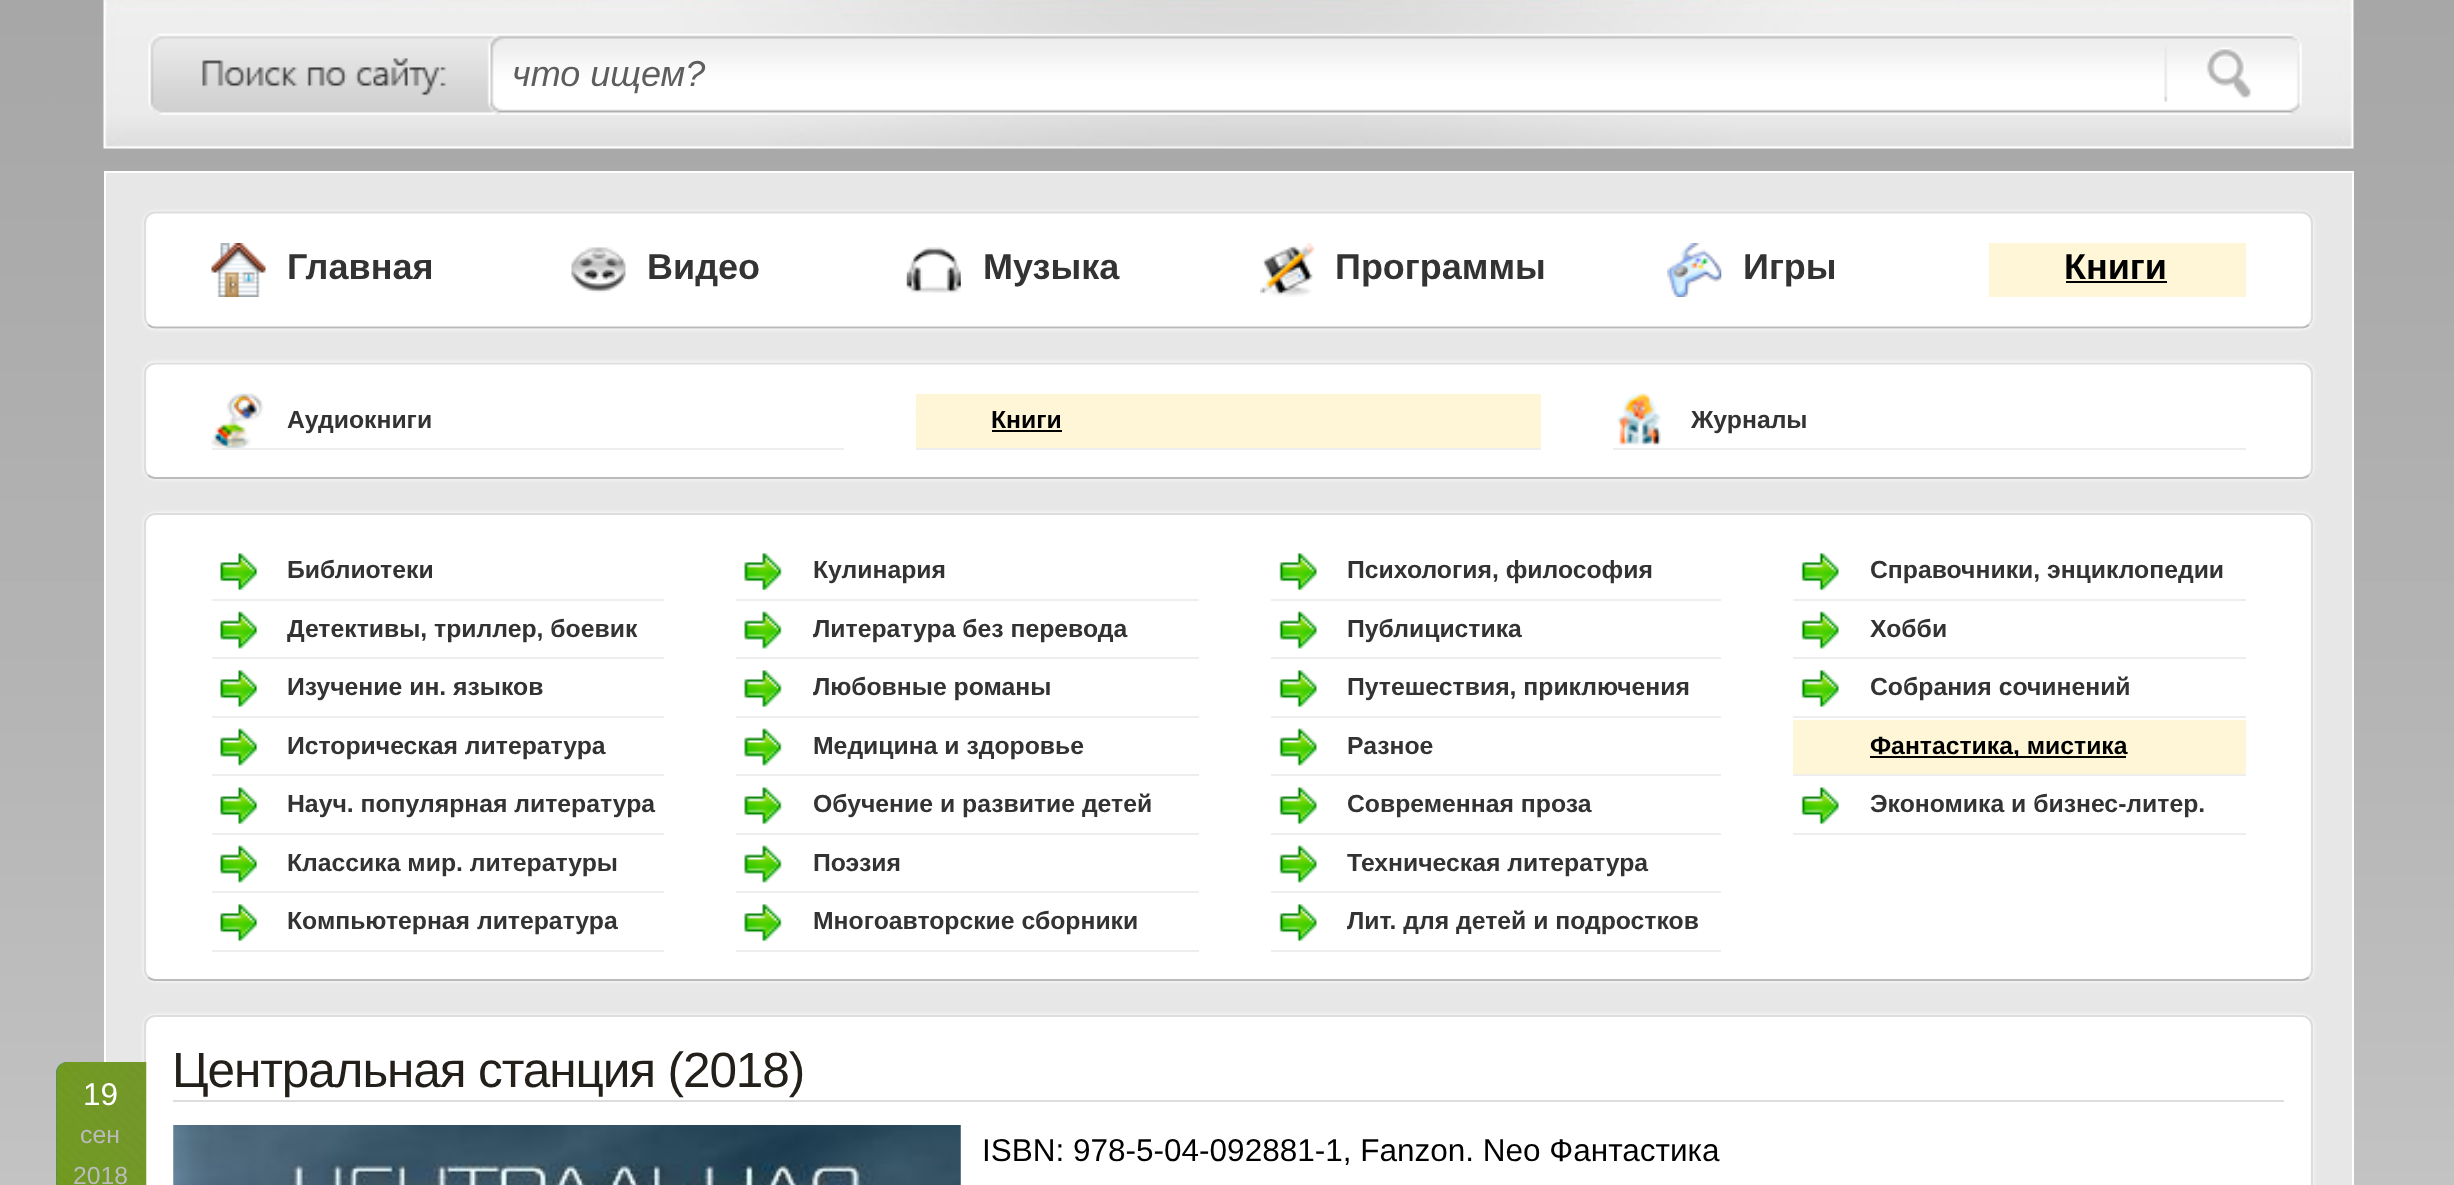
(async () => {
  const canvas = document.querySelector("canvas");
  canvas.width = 2454;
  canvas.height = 1185;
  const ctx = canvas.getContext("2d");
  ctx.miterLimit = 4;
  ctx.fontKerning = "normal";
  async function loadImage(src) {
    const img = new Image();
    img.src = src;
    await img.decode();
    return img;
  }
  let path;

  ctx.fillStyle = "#ffffff";
  ctx.fillRect(0, 0, 2454, 1185);
  ctx.drawImage(await loadImage("img/1.png"), 0, 0, 2454, 1185);
  ctx.drawImage(await loadImage("img/2.png"), 103, 0, 2251, 149);
  ctx.drawImage(await loadImage("img/3.png"), 148, 33, 2154, 82);
  ctx.fillStyle = "#e7e7e7";
  ctx.beginPath();
  ctx.rect(105, 172, 2248, 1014);
  ctx.fill();
  ctx.strokeStyle = "#ffffff";
  ctx.lineWidth = 2;
  ctx.stroke();
  ctx.fillStyle = "#ffffff";
  ctx.filter = "blur(2px)";
  ctx.beginPath();
  ctx.roundRect(144, 212, 2169, 117, 11);
  ctx.fill();
  ctx.filter = "none";
  ctx.beginPath();
  ctx.roundRect(144, 212, 2169, 117, 11);
  ctx.fill();
  path = new Path2D("M2309 324.5C2307 326.5 2304.5 327.5 2302 327.5H155C152.5 327.5 150 326.5 148 324.5");
  ctx.strokeStyle = "#bbbbbb";
  ctx.lineWidth = 2.2;
  ctx.stroke(path);
  path = new Path2D("M148 324.5C146 322.5 145 320 145 317V223C145 220 146 217.5 148 215.5C150 213.5 152.5 212.5 155 212.5H2302C2304.5 212.5 2307 213.5 2309 215.5C2311 217.5 2312 220 2312 223V317C2312 320 2311 322.5 2309 324.5");
  ctx.strokeStyle = "#dddddd";
  ctx.stroke(path);
  ctx.drawImage(await loadImage("img/4.png"), 211, 243, 55, 54);
  ctx.drawImage(await loadImage("img/5.png"), 571, 247, 55, 46);
  ctx.drawImage(await loadImage("img/6.png"), 906, 247, 55, 46);
  ctx.drawImage(await loadImage("img/7.png"), 1260, 243, 54, 54);
  ctx.drawImage(await loadImage("img/8.png"), 1667, 243, 55, 54);
  ctx.fillStyle = "#fef6d7";
  ctx.fillRect(1989, 243, 257, 54);
  ctx.fillStyle = "#000000";
  ctx.fillRect(2066, 281, 101, 2);
  ctx.fillStyle = "#ffffff";
  ctx.filter = "blur(2px)";
  ctx.beginPath();
  ctx.roundRect(144, 362, 2169, 117, 11);
  ctx.fill();
  ctx.filter = "none";
  ctx.beginPath();
  ctx.roundRect(144, 362, 2169, 117, 11);
  ctx.fill();
  path = new Path2D("M2309 475C2307 477 2304.5 478 2302 478H155C152.5 478 150 477 148 475");
  ctx.strokeStyle = "#bbbbbb";
  ctx.stroke(path);
  path = new Path2D("M148 475C146 473.5 145 470.5 145 468V373.5C145 371 146 368 148 366.5C150 364.5 152.5 363.5 155 363.5H2302C2304.5 363.5 2307 364.5 2309 366.5C2311 368 2312 371 2312 373.5V468C2312 470.5 2311 473.5 2309 475");
  ctx.strokeStyle = "#dddddd";
  ctx.stroke(path);
  ctx.fillStyle = "#eeeeee";
  ctx.fillRect(212, 448, 632, 2);
  ctx.drawImage(await loadImage("img/9.png"), 211, 393, 53, 55);
  ctx.fillStyle = "#fef6d7";
  ctx.fillRect(916, 394, 625, 54);
  ctx.fillStyle = "#eeeeee";
  ctx.fillRect(916, 448, 625, 2);
  ctx.drawImage(await loadImage("img/10.png"), 915, 394, 1, 50);
  ctx.fillStyle = "#000000";
  ctx.fillRect(992, 430, 70, 2);
  ctx.fillStyle = "#eeeeee";
  ctx.fillRect(1613, 448, 633, 2);
  ctx.drawImage(await loadImage("img/11.png"), 1617, 393, 44, 53);
  ctx.fillStyle = "#ffffff";
  ctx.filter = "blur(2px)";
  ctx.beginPath();
  ctx.roundRect(144, 513, 2169, 468, 11);
  ctx.fill();
  ctx.filter = "none";
  ctx.beginPath();
  ctx.roundRect(144, 513, 2169, 468, 11);
  ctx.fill();
  path = new Path2D("M2309 977C2307 979 2304.5 980 2302 980H155C152.5 980 150 979 148 977");
  ctx.strokeStyle = "#bbbbbb";
  ctx.stroke(path);
  path = new Path2D("M148 977C146 975 145 972.5 145 970V524C145 521.5 146 519 148 517C150 515 152.5 514 155 514H2302C2304.5 514 2307 515 2309 517C2311 519 2312 521.5 2312 524V970C2312 972.5 2311 975 2309 977");
  ctx.strokeStyle = "#dddddd";
  ctx.stroke(path);
  ctx.fillStyle = "#eeeeee";
  ctx.fillRect(212, 599, 452, 2);
  ctx.drawImage(await loadImage("img/12.png"), 220, 553, 38, 38);
  ctx.fillRect(212, 657, 452, 2);
  ctx.drawImage(await loadImage("img/13.png"), 220, 611, 38, 38);
  ctx.fillRect(212, 716, 452, 2);
  ctx.drawImage(await loadImage("img/14.png"), 220, 670, 38, 38);
  ctx.fillRect(212, 774, 452, 2);
  ctx.drawImage(await loadImage("img/13.png"), 220, 728, 38, 38);
  ctx.fillRect(212, 833, 452, 2);
  ctx.drawImage(await loadImage("img/15.png"), 220, 787, 38, 38);
  ctx.fillRect(212, 891, 452, 2);
  ctx.drawImage(await loadImage("img/13.png"), 220, 845, 38, 38);
  ctx.fillRect(212, 950, 452, 2);
  ctx.drawImage(await loadImage("img/14.png"), 220, 904, 38, 38);
  ctx.fillRect(736, 599, 463, 2);
  ctx.drawImage(await loadImage("img/16.png"), 744, 553, 38, 38);
  ctx.fillRect(736, 657, 463, 2);
  ctx.drawImage(await loadImage("img/17.png"), 744, 611, 38, 38);
  ctx.fillRect(736, 716, 463, 2);
  ctx.drawImage(await loadImage("img/18.png"), 744, 670, 38, 38);
  ctx.fillRect(736, 774, 463, 2);
  ctx.drawImage(await loadImage("img/17.png"), 744, 728, 38, 38);
  ctx.fillRect(736, 833, 463, 2);
  ctx.drawImage(await loadImage("img/19.png"), 744, 787, 38, 38);
  ctx.fillRect(736, 891, 463, 2);
  ctx.drawImage(await loadImage("img/17.png"), 744, 845, 38, 38);
  ctx.fillRect(736, 950, 463, 2);
  ctx.drawImage(await loadImage("img/18.png"), 744, 904, 38, 38);
  ctx.fillRect(1271, 599, 450, 2);
  ctx.drawImage(await loadImage("img/20.png"), 1279, 553, 38, 38);
  ctx.fillRect(1271, 657, 450, 2);
  ctx.drawImage(await loadImage("img/21.png"), 1279, 611, 38, 38);
  ctx.fillRect(1271, 716, 450, 2);
  ctx.drawImage(await loadImage("img/22.png"), 1279, 670, 38, 38);
  ctx.fillRect(1271, 774, 450, 2);
  ctx.drawImage(await loadImage("img/21.png"), 1279, 728, 38, 38);
  ctx.fillRect(1271, 833, 450, 2);
  ctx.drawImage(await loadImage("img/23.png"), 1279, 787, 38, 38);
  ctx.fillRect(1271, 891, 450, 2);
  ctx.drawImage(await loadImage("img/21.png"), 1279, 845, 38, 38);
  ctx.fillRect(1271, 950, 450, 2);
  ctx.drawImage(await loadImage("img/22.png"), 1279, 904, 38, 38);
  ctx.fillRect(1793, 599, 453, 2);
  ctx.drawImage(await loadImage("img/20.png"), 1801, 553, 38, 38);
  ctx.fillRect(1793, 657, 453, 2);
  ctx.drawImage(await loadImage("img/21.png"), 1801, 611, 38, 38);
  ctx.fillRect(1793, 716, 453, 2);
  ctx.drawImage(await loadImage("img/22.png"), 1801, 670, 38, 38);
  for (const [x, y, w, h, color] of [
    [1793, 720, 453, 54, "#fef6d7"],
    [1793, 774, 453, 2, "#eeeeee"],
    [1870, 756, 256, 2, "#000000"],
    [1793, 833, 453, 2, "#eeeeee"],
  ]) {
    ctx.fillStyle = color;
    ctx.fillRect(x, y, w, h);
  }
  ctx.drawImage(await loadImage("img/23.png"), 1801, 787, 38, 38);
  ctx.fillStyle = "#ffffff";
  ctx.filter = "blur(2px)";
  ctx.beginPath();
  ctx.roundRect(144, 1015, 2169, 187, 11);
  ctx.fill();
  ctx.filter = "none";
  ctx.beginPath();
  ctx.roundRect(144, 1015, 2169, 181, 11);
  ctx.fill();
  path = new Path2D("M148 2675.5C146 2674 145 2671 145 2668.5V1026C145 1023.5 146 1020.5 148 1019C150 1017 152.5 1016 155 1016H2302C2304.5 1016 2307 1017 2309 1019C2311 1020.5 2312 1023.5 2312 1026V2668.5C2312 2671 2311 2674 2309 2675.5");
  ctx.stroke(path);
  ctx.fillStyle = "#dddddd";
  ctx.fillRect(173, 1100, 2111, 2);
  ctx.fillStyle = "#0082d6";
  path = new Path2D("M67 1062H146V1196H67C61 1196 56 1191 56 1185V1073C56 1067 61 1062 67 1062Z");
  ctx.fill(path);
  ctx.drawImage(await loadImage("img/24.png"), 56, 1062, 91, 123);
  ctx.drawImage(await loadImage("img/25.png"), 173, 1125, 788, 60);
  ctx.font = "italic 36px Liberation Sans";
  ctx.fillStyle = "#5e5e5e";
  ctx.fillText("что ищем?", 512, 86);
  ctx.font = "bold 36px Liberation Sans";
  ctx.fillStyle = "#333333";
  for (const [text, x, y] of [
    ["Главная", 287, 279],
    ["Видео", 647, 279],
    ["Музыка", 983, 279],
    ["Программы", 1335, 279],
    ["Игры", 1743, 279],
  ]) {
    ctx.fillText(text, x, y);
  }
  ctx.fillStyle = "#000000";
  ctx.fillText("Книги", 2064, 279);
  ctx.font = "bold 24.75px Liberation Sans";
  ctx.fillStyle = "#333333";
  ctx.fillText("Аудиокниги", 287, 428);
  ctx.fillStyle = "#000000";
  ctx.fillText("Книги", 991, 428);
  ctx.fillStyle = "#333333";
  for (const [text, x, y] of [
    ["Журналы", 1691, 428],
    ["Библиотеки", 287, 578],
    ["Детективы, триллер, боевик", 287, 637],
    ["Изучение ин. языков", 287, 695],
    ["Историческая литература", 287, 754],
    ["Науч. популярная литература", 287, 812],
    ["Классика мир. литературы", 287, 871],
    ["Компьютерная литература", 287, 929],
    ["Кулинария", 813, 578],
    ["Литература без перевода", 813, 637],
    ["Любовные романы", 813, 695],
    ["Медицина и здоровье", 813, 754],
    ["Обучение и развитие детей", 813, 812],
    ["Поэзия", 813, 871],
    ["Многоавторские сборники", 813, 929],
    ["Психология, философия", 1347, 578],
    ["Публицистика", 1347, 637],
    ["Путешествия, приключения", 1347, 695],
    ["Разное", 1347, 754],
    ["Современная проза", 1347, 812],
    ["Техническая литература", 1347, 871],
    ["Лит. для детей и подростков", 1347, 929],
    ["Справочники, энциклопедии", 1870, 578],
    ["Хобби", 1870, 637],
    ["Собрания сочинений", 1870, 695],
  ]) {
    ctx.fillText(text, x, y);
  }
  ctx.fillStyle = "#000000";
  ctx.fillText("Фантастика, мистика", 1870, 754);
  ctx.fillStyle = "#333333";
  ctx.fillText("Экономика и бизнес-литер.", 1870, 812);
  ctx.letterSpacing = "-1.1px";
  ctx.font = "49.5px Liberation Sans";
  ctx.fillStyle = "#23201b";
  ctx.fillText("Центральная станция (2018)", 172, 1087);
  ctx.letterSpacing = "0px";
  ctx.font = "31.5px Liberation Sans";
  ctx.fillStyle = "#ffffff";
  ctx.fillText("19", 83, 1105);
  ctx.font = "24.75px Liberation Sans";
  ctx.fillStyle = "#bbbbbb";
  ctx.fillText("сен", 80, 1143);
  ctx.fillText("2018", 73, 1184);
  ctx.font = "31.5px Liberation Sans";
  ctx.fillStyle = "#000000";
  ctx.fillText("ISBN: 978-5-04-092881-1, Fanzon. Neo Фантастика", 982, 1161);
})();
